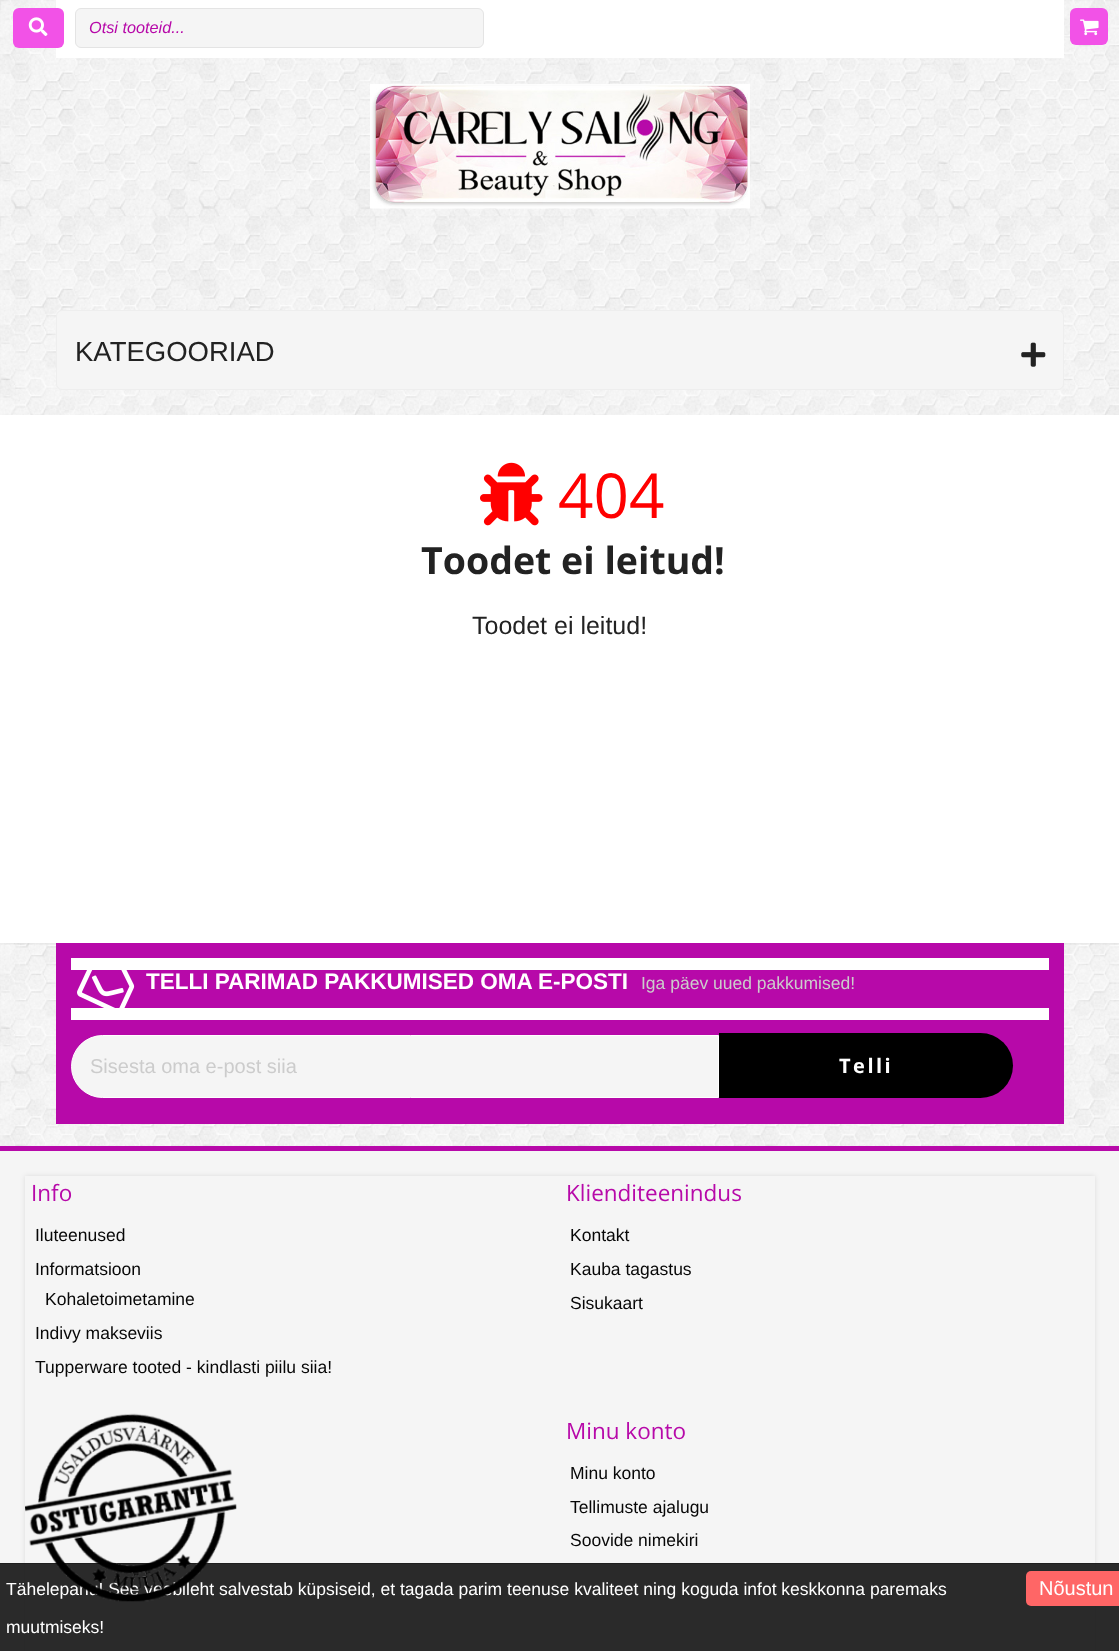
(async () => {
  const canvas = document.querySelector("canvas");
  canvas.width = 1119;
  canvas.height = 1651;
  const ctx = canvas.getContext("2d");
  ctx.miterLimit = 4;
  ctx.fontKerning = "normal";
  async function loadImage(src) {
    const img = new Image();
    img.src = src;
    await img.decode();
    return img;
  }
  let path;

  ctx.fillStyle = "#ffffff";
  ctx.fillRect(0, 0, 1119, 1651);
  ctx.drawImage(await loadImage("img/1.png"), 0, 0, 1119, 1146);
  ctx.save();
  ctx.beginPath();
  ctx.rect(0, 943, 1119, 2);
  ctx.clip();
  ctx.fillStyle = "rgba(0, 0, 0, 0.1)";
  ctx.filter = "blur(2.5px)";
  ctx.beginPath();
  ctx.rect(0, 0, 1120, 943);
  ctx.fill();
  ctx.filter = "none";
  ctx.restore();
  ctx.fillRect(56, 0, 1008, 58);
  ctx.fillStyle = "#f252e7";
  ctx.beginPath();
  ctx.roundRect(13, 8, 51, 40, 6);
  ctx.fill();
  ctx.drawImage(await loadImage("img/2.png"), 28, 17, 20, 19);
  ctx.fillStyle = "#f5f5f5";
  ctx.beginPath();
  ctx.roundRect(75.5, 8.5, 408, 39, 5.5);
  ctx.fill();
  ctx.strokeStyle = "#e4e4e4";
  ctx.stroke();
  ctx.fillStyle = "#f252e7";
  ctx.beginPath();
  ctx.roundRect(1070, 8, 38, 37, 6);
  ctx.fill();
  ctx.drawImage(await loadImage("img/3.png"), 1080, 19, 19, 17);
  ctx.drawImage(await loadImage("img/4.png"), 370, 84, 380, 125);
  ctx.fillStyle = "#f5f5f5";
  ctx.beginPath();
  ctx.roundRect(56.5, 310.5, 1007, 79, 5.5);
  ctx.fill();
  ctx.strokeStyle = "#eeeeee";
  ctx.stroke();
  ctx.drawImage(await loadImage("img/5.png"), 1021, 342, 25, 25);
  ctx.fillStyle = "#ffffff";
  ctx.fillRect(0, 415, 1119, 528);
  ctx.drawImage(await loadImage("img/6.png"), 480, 462, 63, 64);
  ctx.fillStyle = "#f5f5f5";
  ctx.fillRect(0, 1151, 1119, 500);
  ctx.save();
  path = new Path2D("M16 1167H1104V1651H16ZM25 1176H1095V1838H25Z");
  ctx.clip(path, "evenodd");
  ctx.fillStyle = "rgba(0, 0, 0, 0.1)";
  ctx.filter = "blur(2.5px)";
  ctx.beginPath();
  ctx.rect(25, 1176, 1070, 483);
  ctx.fill();
  ctx.filter = "none";
  ctx.restore();
  ctx.fillStyle = "rgba(20, 20, 20, 0.9)";
  ctx.fillRect(0, 1564, 1119, 87);
  ctx.fillStyle = "#1f1f1f";
  ctx.fillRect(0, 1563, 1119, 1);
  ctx.fillStyle = "#ff6666";
  ctx.beginPath();
  ctx.roundRect(1026, 1571, 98, 35, 5);
  ctx.fill();
  for (const [x, y, w, h, color] of [
    [56, 943, 1008, 181, "#b709a9"],
    [71, 958, 978, 62, "#ffffff"],
    [71, 970, 978, 38, "#b709a9"],
  ]) {
    ctx.fillStyle = color;
    ctx.fillRect(x, y, w, h);
  }
  ctx.drawImage(await loadImage("img/7.png"), 77, 970, 58, 38);
  ctx.fillStyle = "#f5f5f5";
  ctx.beginPath();
  ctx.roundRect(71.5, 1035.5, 647, 62, [31, 0, 0, 31]);
  ctx.fill();
  ctx.strokeStyle = "#ffffff";
  ctx.stroke();
  ctx.fillStyle = "#000000";
  ctx.beginPath();
  ctx.roundRect(719, 1033, 294, 65, [0, 32.5, 32.5, 0]);
  ctx.fill();
  ctx.fillStyle = "#b709a9";
  ctx.fillRect(0, 1146, 1119, 5);
  ctx.font = "italic 16.25px Liberation Sans";
  ctx.fillText("Otsi tooteid...", 89, 33);
  ctx.font = "27.5px Liberation Sans";
  ctx.fillStyle = "#222222";
  ctx.fillText("KATEGOORIAD", 75, 361);
  ctx.font = "62px Open Sans";
  ctx.fillStyle = "#ff0000";
  ctx.fillText("404", 558, 518);
  ctx.font = "bold 37.5px Open Sans";
  ctx.fillStyle = "#222222";
  ctx.fillText("Toodet ei leitud!", 421, 574);
  ctx.font = "25px Liberation Sans";
  ctx.fillText("Toodet ei leitud!", 472, 634);
  ctx.font = "17.5px Liberation Sans";
  ctx.fillStyle = "#ffffff";
  ctx.fillText("Tähelepanu! See veebileht salvestab küpsiseid, et tagada parim teenuse kvaliteet ning koguda infot keskkonna paremaks", 6, 1595);
  ctx.font = "20px Liberation Sans";
  ctx.fillText("Nõustun", 1039, 1595);
  ctx.font = "17.5px Liberation Sans";
  ctx.fillText("muutmiseks!", 6, 1633);
  ctx.font = "bold 22.5px Liberation Sans";
  ctx.fillText("TELLI PARIMAD PAKKUMISED OMA E-POSTI", 146, 989);
  ctx.font = "17.5px Liberation Sans";
  ctx.fillStyle = "#cccccc";
  ctx.fillText("Iga päev uued pakkumised!", 641, 989);
  ctx.font = "20px Liberation Sans";
  ctx.fillText("Sisesta oma e-post siia", 90, 1073);
  ctx.letterSpacing = "2.5px";
  ctx.font = "bold 20px Open Sans";
  ctx.fillStyle = "#ffffff";
  ctx.fillText("Telli", 839, 1073);
  ctx.letterSpacing = "0px";
  ctx.font = "22.5px Open Sans";
  ctx.fillStyle = "#b709a9";
  ctx.fillText("Info", 31, 1201);
  ctx.font = "17.5px Liberation Sans";
  ctx.fillStyle = "#070707";
  for (const [text, x, y] of [
    ["Iluteenused", 35, 1241],
    ["Informatsioon", 35, 1275],
    ["Kohaletoimetamine", 45, 1305],
    ["Indivy makseviis", 35, 1339],
    ["Tupperware tooted - kindlasti piilu siia!", 35, 1373],
  ]) {
    ctx.fillText(text, x, y);
  }
  ctx.font = "22.5px Open Sans";
  ctx.fillStyle = "#b709a9";
  ctx.fillText("Klienditeenindus", 566, 1201);
  ctx.font = "17.5px Liberation Sans";
  ctx.fillStyle = "#070707";
  for (const [text, x, y] of [
    ["Kontakt", 570, 1241],
    ["Kauba tagastus", 570, 1275],
    ["Sisukaart", 570, 1309],
  ]) {
    ctx.fillText(text, x, y);
  }
  ctx.drawImage(await loadImage("img/8.png"), 25, 1413, 212, 189);
  ctx.font = "22.5px Open Sans";
  ctx.fillStyle = "#b709a9";
  ctx.fillText("Minu konto", 566, 1439);
  ctx.font = "17.5px Liberation Sans";
  ctx.fillStyle = "#070707";
  for (const [text, x, y] of [
    ["Minu konto", 570, 1479],
    ["Tellimuste ajalugu", 570, 1513],
    ["Soovide nimekiri", 570, 1546],
  ]) {
    ctx.fillText(text, x, y);
  }
})();
